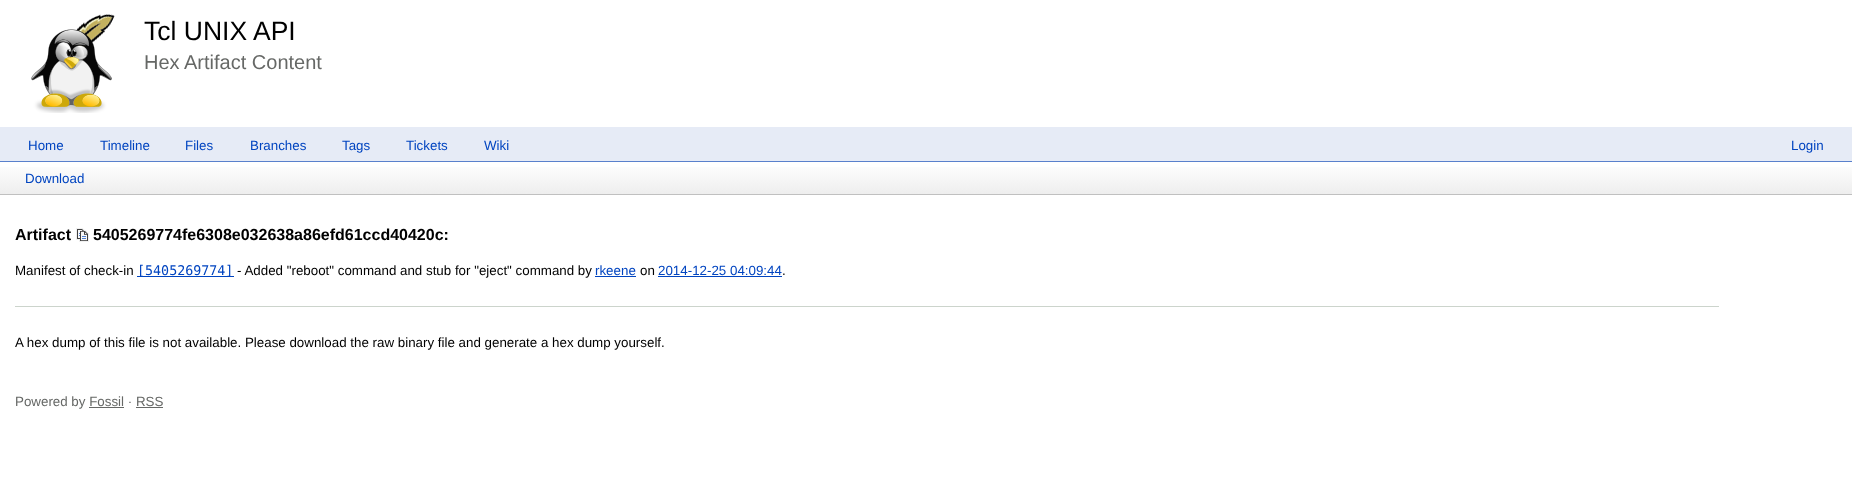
(async () => {
  const canvas = document.querySelector("canvas");
  canvas.width = 1852;
  canvas.height = 503;
  const ctx = canvas.getContext("2d");
  ctx.miterLimit = 4;
  ctx.fontKerning = "normal";
  async function loadImage(src) {
    const img = new Image();
    img.src = src;
    await img.decode();
    return img;
  }
  let gradient;

  ctx.fillStyle = "#ffffff";
  ctx.fillRect(0, 0, 1852, 503);
  ctx.drawImage(await loadImage("img/1.png"), 31, 14, 84, 99);
  ctx.fillStyle = "#e6ebf6";
  ctx.fillRect(0, 127, 1852, 34);
  ctx.fillStyle = "#5980cc";
  ctx.fillRect(0, 161, 1852, 1);
  gradient = ctx.createLinearGradient(0, 194, 0, 162);
  gradient.addColorStop(0, "#eeeeee");
  gradient.addColorStop(1, "#ffffff");
  ctx.fillStyle = gradient;
  ctx.fillRect(0, 167, 1852, 27);
  ctx.fillStyle = "#c0c0c0";
  ctx.fillRect(0, 194, 1852, 1);
  ctx.drawImage(await loadImage("img/2.png"), 76, 228, 13, 14);
  for (const [x, y, w, h, color] of [
    [137, 276, 97, 1, "#0044c0"],
    [595, 276, 41, 1, "#0044c0"],
    [658, 276, 124, 1, "#0044c0"],
    [15, 306, 1704, 1, "#ccd4cc"],
    [89, 407, 35, 1, "#666866"],
    [136, 407, 27, 1, "#666866"],
  ]) {
    ctx.fillStyle = color;
    ctx.fillRect(x, y, w, h);
  }
  ctx.font = "26.5px Liberation Sans";
  ctx.fillStyle = "#000000";
  ctx.fillText("Tcl UNIX API", 144, 40);
  ctx.font = "20px Liberation Sans";
  ctx.fillStyle = "#666866";
  ctx.fillText("Hex Artifact Content", 144, 69);
  ctx.font = "13.35px Liberation Sans";
  ctx.fillStyle = "#0044c0";
  for (const [text, x, y] of [
    ["Home", 28, 150],
    ["Timeline", 100, 150],
    ["Files", 185, 150],
    ["Branches", 250, 150],
    ["Tags", 342, 150],
    ["Tickets", 406, 150],
    ["Wiki", 484, 150],
    ["Login", 1791, 150],
    ["Download", 25, 183],
  ]) {
    ctx.fillText(text, x, y);
  }
  ctx.font = "bold 16px Liberation Sans";
  ctx.fillStyle = "#000000";
  ctx.fillText("Artifact", 15, 240);
  ctx.fillText("5405269774fe6308e032638a86efd61ccd40420c:", 93, 240);
  ctx.font = "13.35px Liberation Sans";
  ctx.fillText("Manifest of check-in", 15, 275);
  ctx.font = "13.35px DejaVu Sans Mono";
  ctx.fillStyle = "#0044c0";
  ctx.fillText("[5405269774]", 137, 275);
  ctx.font = "13.35px Liberation Sans";
  ctx.fillStyle = "#000000";
  ctx.fillText("- Added \"reboot\" command and stub for \"eject\" command by", 237, 275);
  ctx.fillStyle = "#0044c0";
  ctx.fillText("rkeene", 595, 275);
  ctx.fillStyle = "#000000";
  ctx.fillText("on", 640, 275);
  ctx.fillStyle = "#0044c0";
  ctx.fillText("2014-12-25 04:09:44", 658, 275);
  ctx.fillStyle = "#000000";
  ctx.fillText(".", 782, 275);
  ctx.fillText("A hex dump of this file is not available. Please download the raw binary file and generate a hex dump yourself.", 15, 347);
  ctx.fillStyle = "#666866";
  ctx.fillText("Powered by Fossil · RSS", 15, 406);
})();
